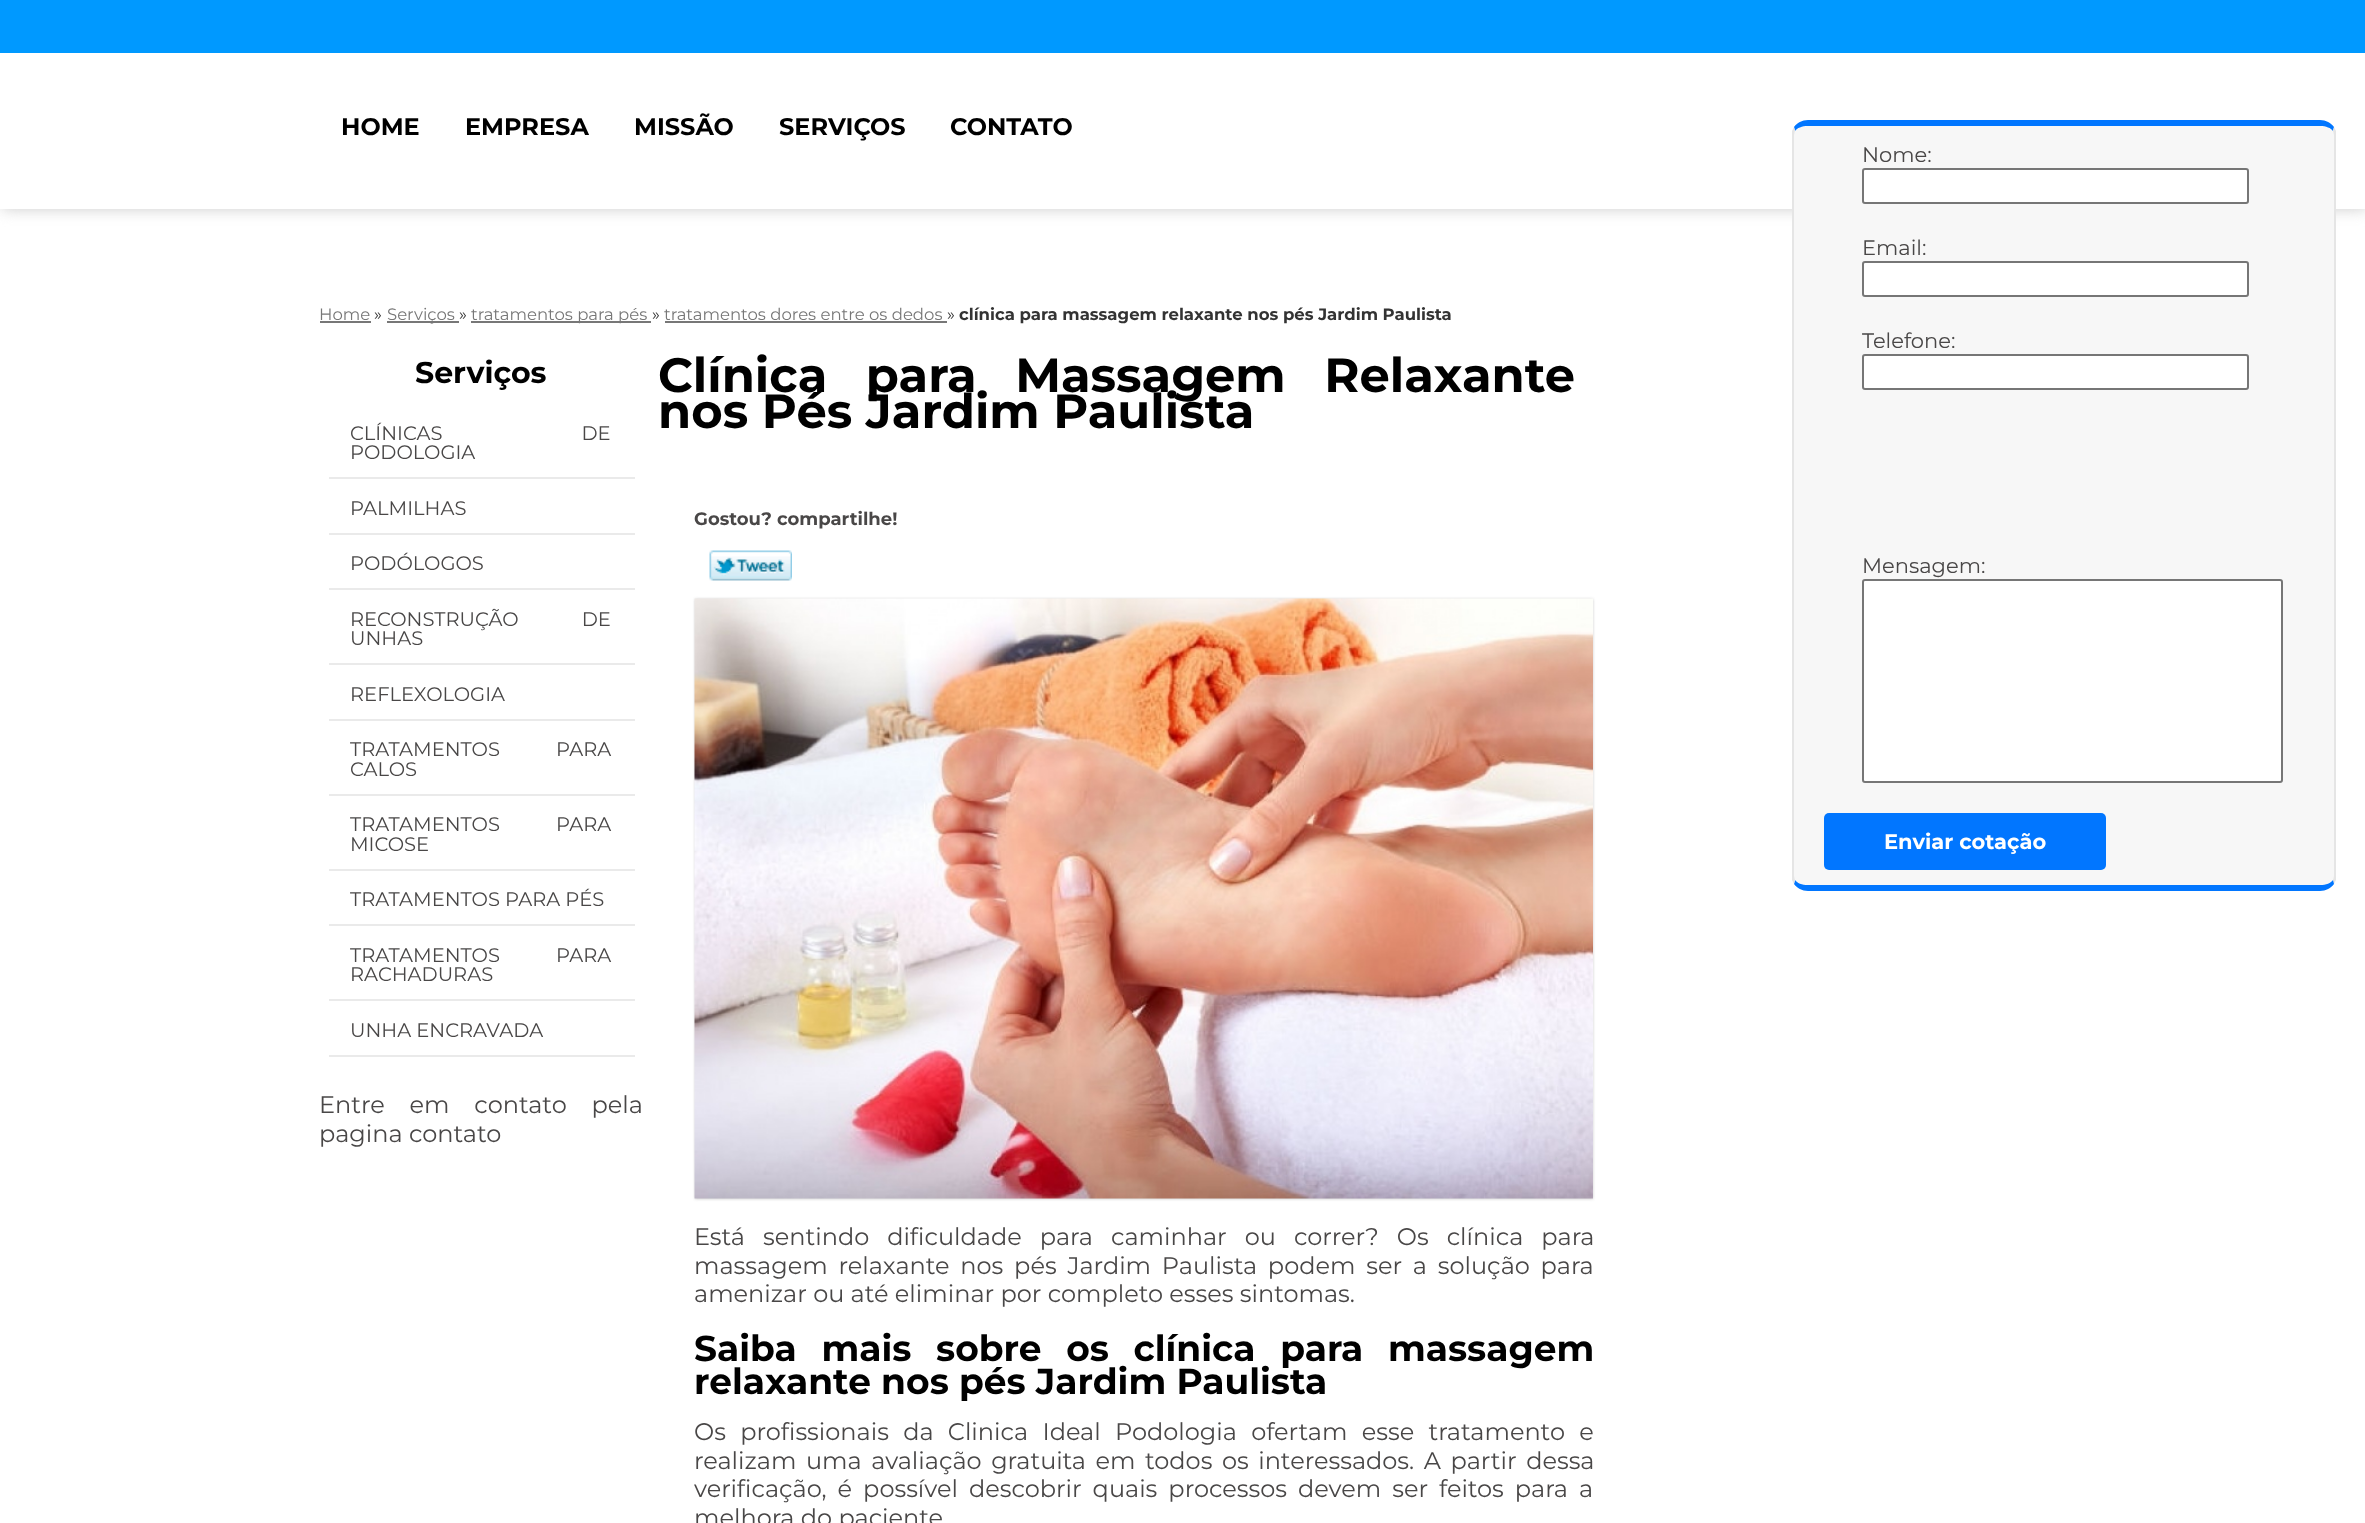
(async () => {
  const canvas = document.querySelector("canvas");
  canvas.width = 2365;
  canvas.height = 1523;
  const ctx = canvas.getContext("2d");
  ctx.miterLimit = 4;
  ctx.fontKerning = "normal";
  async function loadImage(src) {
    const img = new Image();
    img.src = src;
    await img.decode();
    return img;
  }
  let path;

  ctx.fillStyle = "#ffffff";
  ctx.fillRect(0, 0, 2365, 1523);
  ctx.fillStyle = "#cccccc";
  ctx.filter = "blur(7.5px)";
  ctx.beginPath();
  ctx.rect(2, 0, 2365, 209);
  ctx.fill();
  ctx.filter = "none";
  ctx.fillStyle = "#ffffff";
  ctx.fillRect(0, 53, 2365, 156);
  ctx.fillStyle = "#0099ff";
  ctx.fillRect(0, 0, 2365, 53);
  ctx.fillStyle = "#f7f7f7";
  path = new Path2D("M1808 126H2320C2328 126 2334 130 2334 135V876C2334 881 2328 885 2320 885H1808C1800 885 1794 881 1794 876V135C1794 130 1800 126 1808 126Z");
  ctx.fill(path);
  ctx.fillStyle = "#0176ff";
  path = new Path2D("M1808 120C1802 120 1797 123 1794 127L1795 131C1797 128 1802 126 1808 126H2320C2326 126 2331 128 2333 131L2334 127C2331 123 2326 120 2320 120Z");
  ctx.fill(path);
  ctx.fillStyle = "#e5e5e5";
  path = new Path2D("M2336 880L2334 884L2333 880L2334 876V135L2333 131L2334 127L2336 131Z");
  ctx.fill(path);
  ctx.fillStyle = "#0176ff";
  path = new Path2D("M1808 891H2320C2326 891 2331 888 2334 884L2333 880C2331 883 2326 885 2320 885H1808C1802 885 1797 883 1795 880L1794 884C1797 888 1802 891 1808 891Z");
  ctx.fill(path);
  ctx.fillStyle = "#e5e5e5";
  path = new Path2D("M1792 131L1794 127L1795 131L1794 135V876L1795 880L1794 884L1792 880Z");
  ctx.fill(path);
  ctx.fillStyle = "#ffffff";
  ctx.beginPath();
  ctx.roundRect(1863, 169, 385, 34, 2);
  ctx.fill();
  ctx.strokeStyle = "#767676";
  ctx.lineWidth = 2;
  ctx.stroke();
  ctx.beginPath();
  ctx.roundRect(1863, 262, 385, 34, 2);
  ctx.fill();
  ctx.stroke();
  ctx.beginPath();
  ctx.roundRect(1863, 355, 385, 34, 2);
  ctx.fill();
  ctx.stroke();
  ctx.beginPath();
  ctx.roundRect(1863, 580, 419, 202, 2);
  ctx.fill();
  ctx.stroke();
  ctx.fillStyle = "#0176ff";
  ctx.beginPath();
  ctx.roundRect(1824, 813, 282, 57, 5);
  ctx.fill();
  ctx.drawImage(await loadImage("img/1.png"), 709, 550, 83, 31);
  ctx.fillStyle = "#cccccc";
  ctx.filter = "blur(1.5px)";
  ctx.beginPath();
  ctx.rect(695, 599, 898, 600);
  ctx.fill();
  ctx.filter = "none";
  ctx.drawImage(await loadImage("img/2.png"), 694, 598, 899, 601);
  for (const [x, y, w, h, color] of [
    [320, 321, 51, 2, "#777777"],
    [387, 321, 72, 2, "#777777"],
    [471, 321, 180, 2, "#777777"],
    [665, 321, 282, 2, "#777777"],
    [329, 477, 306, 2, "#eaeaea"],
    [329, 533, 306, 2, "#eaeaea"],
    [329, 588, 306, 2, "#eaeaea"],
    [329, 663, 306, 2, "#eaeaea"],
    [329, 719, 306, 2, "#eaeaea"],
    [329, 794, 306, 2, "#eaeaea"],
    [329, 869, 306, 2, "#eaeaea"],
    [329, 924, 306, 2, "#eaeaea"],
    [329, 999, 306, 2, "#eaeaea"],
    [329, 1055, 306, 2, "#eaeaea"],
  ]) {
    ctx.fillStyle = color;
    ctx.fillRect(x, y, w, h);
  }
  ctx.font = "bold 24px Montserrat";
  ctx.fillStyle = "#000000";
  for (const [text, x, y] of [
    ["HOME", 341, 135],
    ["EMPRESA", 465, 135],
    ["MISSÃO", 634, 135],
    ["SERVIÇOS", 779, 135],
    ["CONTATO", 950, 135],
  ]) {
    ctx.fillText(text, x, y);
  }
  ctx.font = "bold 18px Montserrat";
  ctx.fillStyle = "#494747";
  ctx.fillText("Gostou? compartilhe!", 694, 525);
  ctx.font = "21px Montserrat";
  for (const [text, x, y] of [
    ["Nome:", 1862, 162],
    ["Email:", 1862, 255],
    ["Telefone:", 1862, 348],
    ["Mensagem:", 1862, 573],
  ]) {
    ctx.fillText(text, x, y);
  }
  ctx.font = "bold 21px Montserrat";
  ctx.fillStyle = "#ffffff";
  ctx.fillText("Enviar cotação", 1884, 849);
  ctx.wordSpacing = "11.75px";
  ctx.font = "24px Montserrat";
  ctx.fillStyle = "#494747";
  ctx.fillText("Está sentindo dificuldade para caminhar ou correr? Os clínica para", 694, 1245);
  ctx.wordSpacing = "4.5px";
  ctx.fillText("massagem relaxante nos pés Jardim Paulista podem ser a solução para", 694, 1274);
  ctx.wordSpacing = "0px";
  ctx.fillText("amenizar ou até eliminar por completo esses sintomas.", 694, 1302);
  ctx.wordSpacing = "14.5px";
  ctx.font = "bold 36px Montserrat";
  ctx.fillStyle = "#000000";
  ctx.fillText("Saiba mais sobre os clínica para massagem", 694, 1361);
  ctx.wordSpacing = "0px";
  ctx.fillText("relaxante nos pés Jardim Paulista", 694, 1394);
  ctx.wordSpacing = "8px";
  ctx.font = "24px Montserrat";
  ctx.fillStyle = "#494747";
  ctx.fillText("Os profissionais da Clinica Ideal Podologia ofertam esse tratamento e", 694, 1440);
  ctx.wordSpacing = "3.25px";
  ctx.fillText("realizam uma avaliação gratuita em todos os interessados. A partir dessa", 694, 1469);
  ctx.wordSpacing = "4.75px";
  ctx.fillText("verificação, é possível descobrir quais processos devem ser feitos para a", 694, 1497);
  ctx.wordSpacing = "0px";
  ctx.fillText("melhora do paciente", 694, 1526);
  ctx.font = "16.5px Montserrat";
  ctx.fillStyle = "#777777";
  ctx.fillText("Home", 319, 320);
  ctx.fillStyle = "#333333";
  ctx.fillText("»", 374, 320);
  ctx.fillStyle = "#777777";
  ctx.fillText("Serviços", 387, 320);
  ctx.fillStyle = "#333333";
  ctx.fillText("»", 459, 320);
  ctx.fillStyle = "#777777";
  ctx.fillText("tratamentos para pés", 471, 320);
  ctx.fillStyle = "#333333";
  ctx.fillText("»", 652, 320);
  ctx.fillStyle = "#777777";
  ctx.fillText("tratamentos dores entre os dedos", 664, 320);
  ctx.fillStyle = "#333333";
  ctx.fillText("»", 947, 320);
  ctx.font = "bold 16.5px Montserrat";
  ctx.fillText("clínica para massagem relaxante nos pés Jardim Paulista", 959, 320);
  ctx.font = "bold 30px Montserrat";
  ctx.fillStyle = "#000000";
  ctx.fillText("Serviços", 415, 383);
  ctx.wordSpacing = "134px";
  ctx.font = "19.5px Montserrat";
  ctx.fillStyle = "#494747";
  ctx.fillText("CLÍNICAS DE", 350, 440);
  ctx.wordSpacing = "0px";
  for (const [text, x, y] of [
    ["PODOLOGIA", 350, 459],
    ["PALMILHAS", 350, 515],
    ["PODÓLOGOS", 350, 570],
  ]) {
    ctx.fillText(text, x, y);
  }
  ctx.wordSpacing = "58px";
  ctx.fillText("RECONSTRUÇÃO DE", 350, 626);
  ctx.wordSpacing = "0px";
  ctx.fillText("UNHAS", 350, 645);
  ctx.fillText("REFLEXOLOGIA", 350, 701);
  ctx.wordSpacing = "51px";
  ctx.fillText("TRATAMENTOS PARA", 350, 756);
  ctx.wordSpacing = "0px";
  ctx.fillText("CALOS", 350, 776);
  ctx.wordSpacing = "51px";
  ctx.fillText("TRATAMENTOS PARA", 350, 831);
  ctx.wordSpacing = "0px";
  ctx.fillText("MICOSE", 350, 851);
  ctx.fillText("TRATAMENTOS PARA PÉS", 350, 906);
  ctx.wordSpacing = "51px";
  ctx.fillText("TRATAMENTOS PARA", 350, 962);
  ctx.wordSpacing = "0px";
  ctx.fillText("RACHADURAS", 350, 981);
  ctx.fillText("UNHA ENCRAVADA", 350, 1037);
  ctx.wordSpacing = "18.5px";
  ctx.font = "24px Montserrat";
  ctx.fillText("Entre em contato pela", 319, 1113);
  ctx.wordSpacing = "0px";
  ctx.fillText("pagina contato", 319, 1142);
  ctx.wordSpacing = "25px";
  ctx.font = "bold 48px Montserrat";
  ctx.fillStyle = "#000000";
  ctx.fillText("Clínica para Massagem Relaxante", 658, 392);
  ctx.wordSpacing = "0px";
  ctx.fillText("nos Pés Jardim Paulista", 658, 428);
})();
